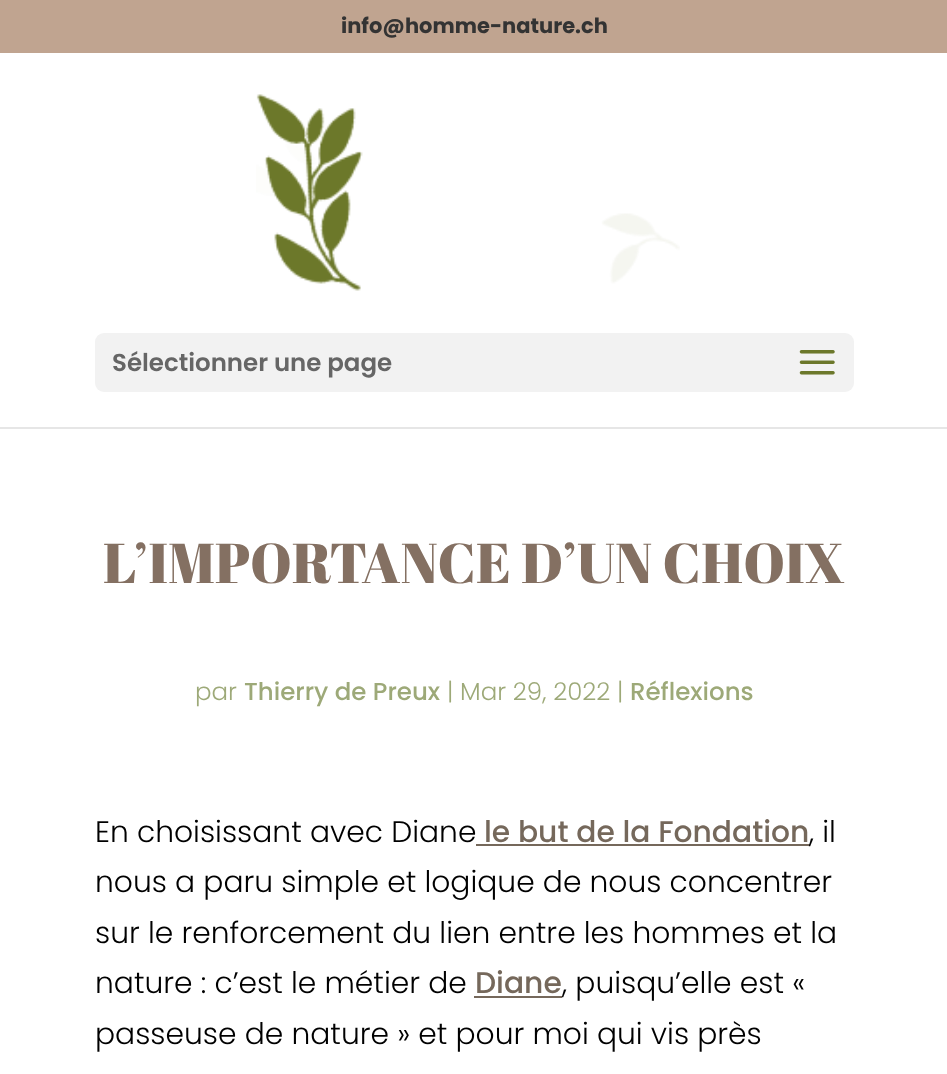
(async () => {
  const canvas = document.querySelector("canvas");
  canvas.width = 947;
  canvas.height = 1074;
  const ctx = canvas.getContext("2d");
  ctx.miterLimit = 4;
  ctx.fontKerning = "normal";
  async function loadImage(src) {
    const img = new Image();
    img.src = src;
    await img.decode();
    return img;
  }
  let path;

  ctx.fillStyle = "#ffffff";
  ctx.fillRect(0, 0, 947, 1074);
  ctx.fillStyle = "#c0a490";
  ctx.fillRect(0, 0, 947, 53);
  ctx.fillStyle = "#e6e6e6";
  path = new Path2D("M0 427V429H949V54H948V427Z");
  ctx.fill(path);
  ctx.drawImage(await loadImage("img/1.png"), 256, 94, 424, 197);
  ctx.fillStyle = "#f2f2f2";
  ctx.beginPath();
  ctx.roundRect(95, 333, 759, 59, 9);
  ctx.fill();
  ctx.drawImage(await loadImage("img/2.png"), 799, 350, 36, 25);
  ctx.fillStyle = "#75685b";
  ctx.fillRect(476, 844, 334, 2);
  ctx.fillRect(474, 996, 88, 2);
  ctx.font = "bold 21px Poppins";
  ctx.fillStyle = "#333333";
  ctx.fillText("info@homme-nature.ch", 341, 33);
  ctx.font = "600 24.5px Poppins";
  ctx.fillStyle = "#666666";
  ctx.fillText("Sélectionner une page", 112, 371);
  ctx.font = "56px Abril Fatface";
  ctx.fillStyle = "#847062";
  ctx.fillText("L’IMPORTANCE D’UN CHOIX", 103, 583);
  ctx.font = "300 24.5px Poppins";
  ctx.fillStyle = "#9da978";
  ctx.fillText("par", 195, 700);
  ctx.font = "500 24.5px Poppins";
  ctx.fillText("Thierry de Preux", 244, 700);
  ctx.font = "300 24.5px Poppins";
  ctx.fillText("| Mar 29, 2022 |", 447, 700);
  ctx.font = "500 24.5px Poppins";
  ctx.fillText("Réflexions", 630, 700);
  ctx.font = "300 29.75px Poppins";
  ctx.fillStyle = "#000000";
  ctx.fillText("En choisissant avec Diane", 95, 842);
  ctx.font = "500 29.75px Poppins";
  ctx.fillStyle = "#75685b";
  ctx.fillText("le but de la Fondation", 484, 842);
  ctx.font = "300 29.75px Poppins";
  ctx.fillStyle = "#000000";
  for (const [text, x, y] of [
    [", il", 809, 842],
    ["nous a paru simple et logique de nous concentrer", 95, 892],
    ["sur le renforcement du lien entre les hommes et la", 95, 943],
    ["nature : c’est le métier de", 95, 993],
  ]) {
    ctx.fillText(text, x, y);
  }
  ctx.font = "500 29.75px Poppins";
  ctx.fillStyle = "#75685b";
  ctx.fillText("Diane", 475, 993);
  ctx.font = "300 29.75px Poppins";
  ctx.fillStyle = "#000000";
  ctx.fillText(", puisqu’elle est «", 562, 993);
  ctx.fillText("passeuse de nature » et pour moi qui vis près", 95, 1044);
})();
